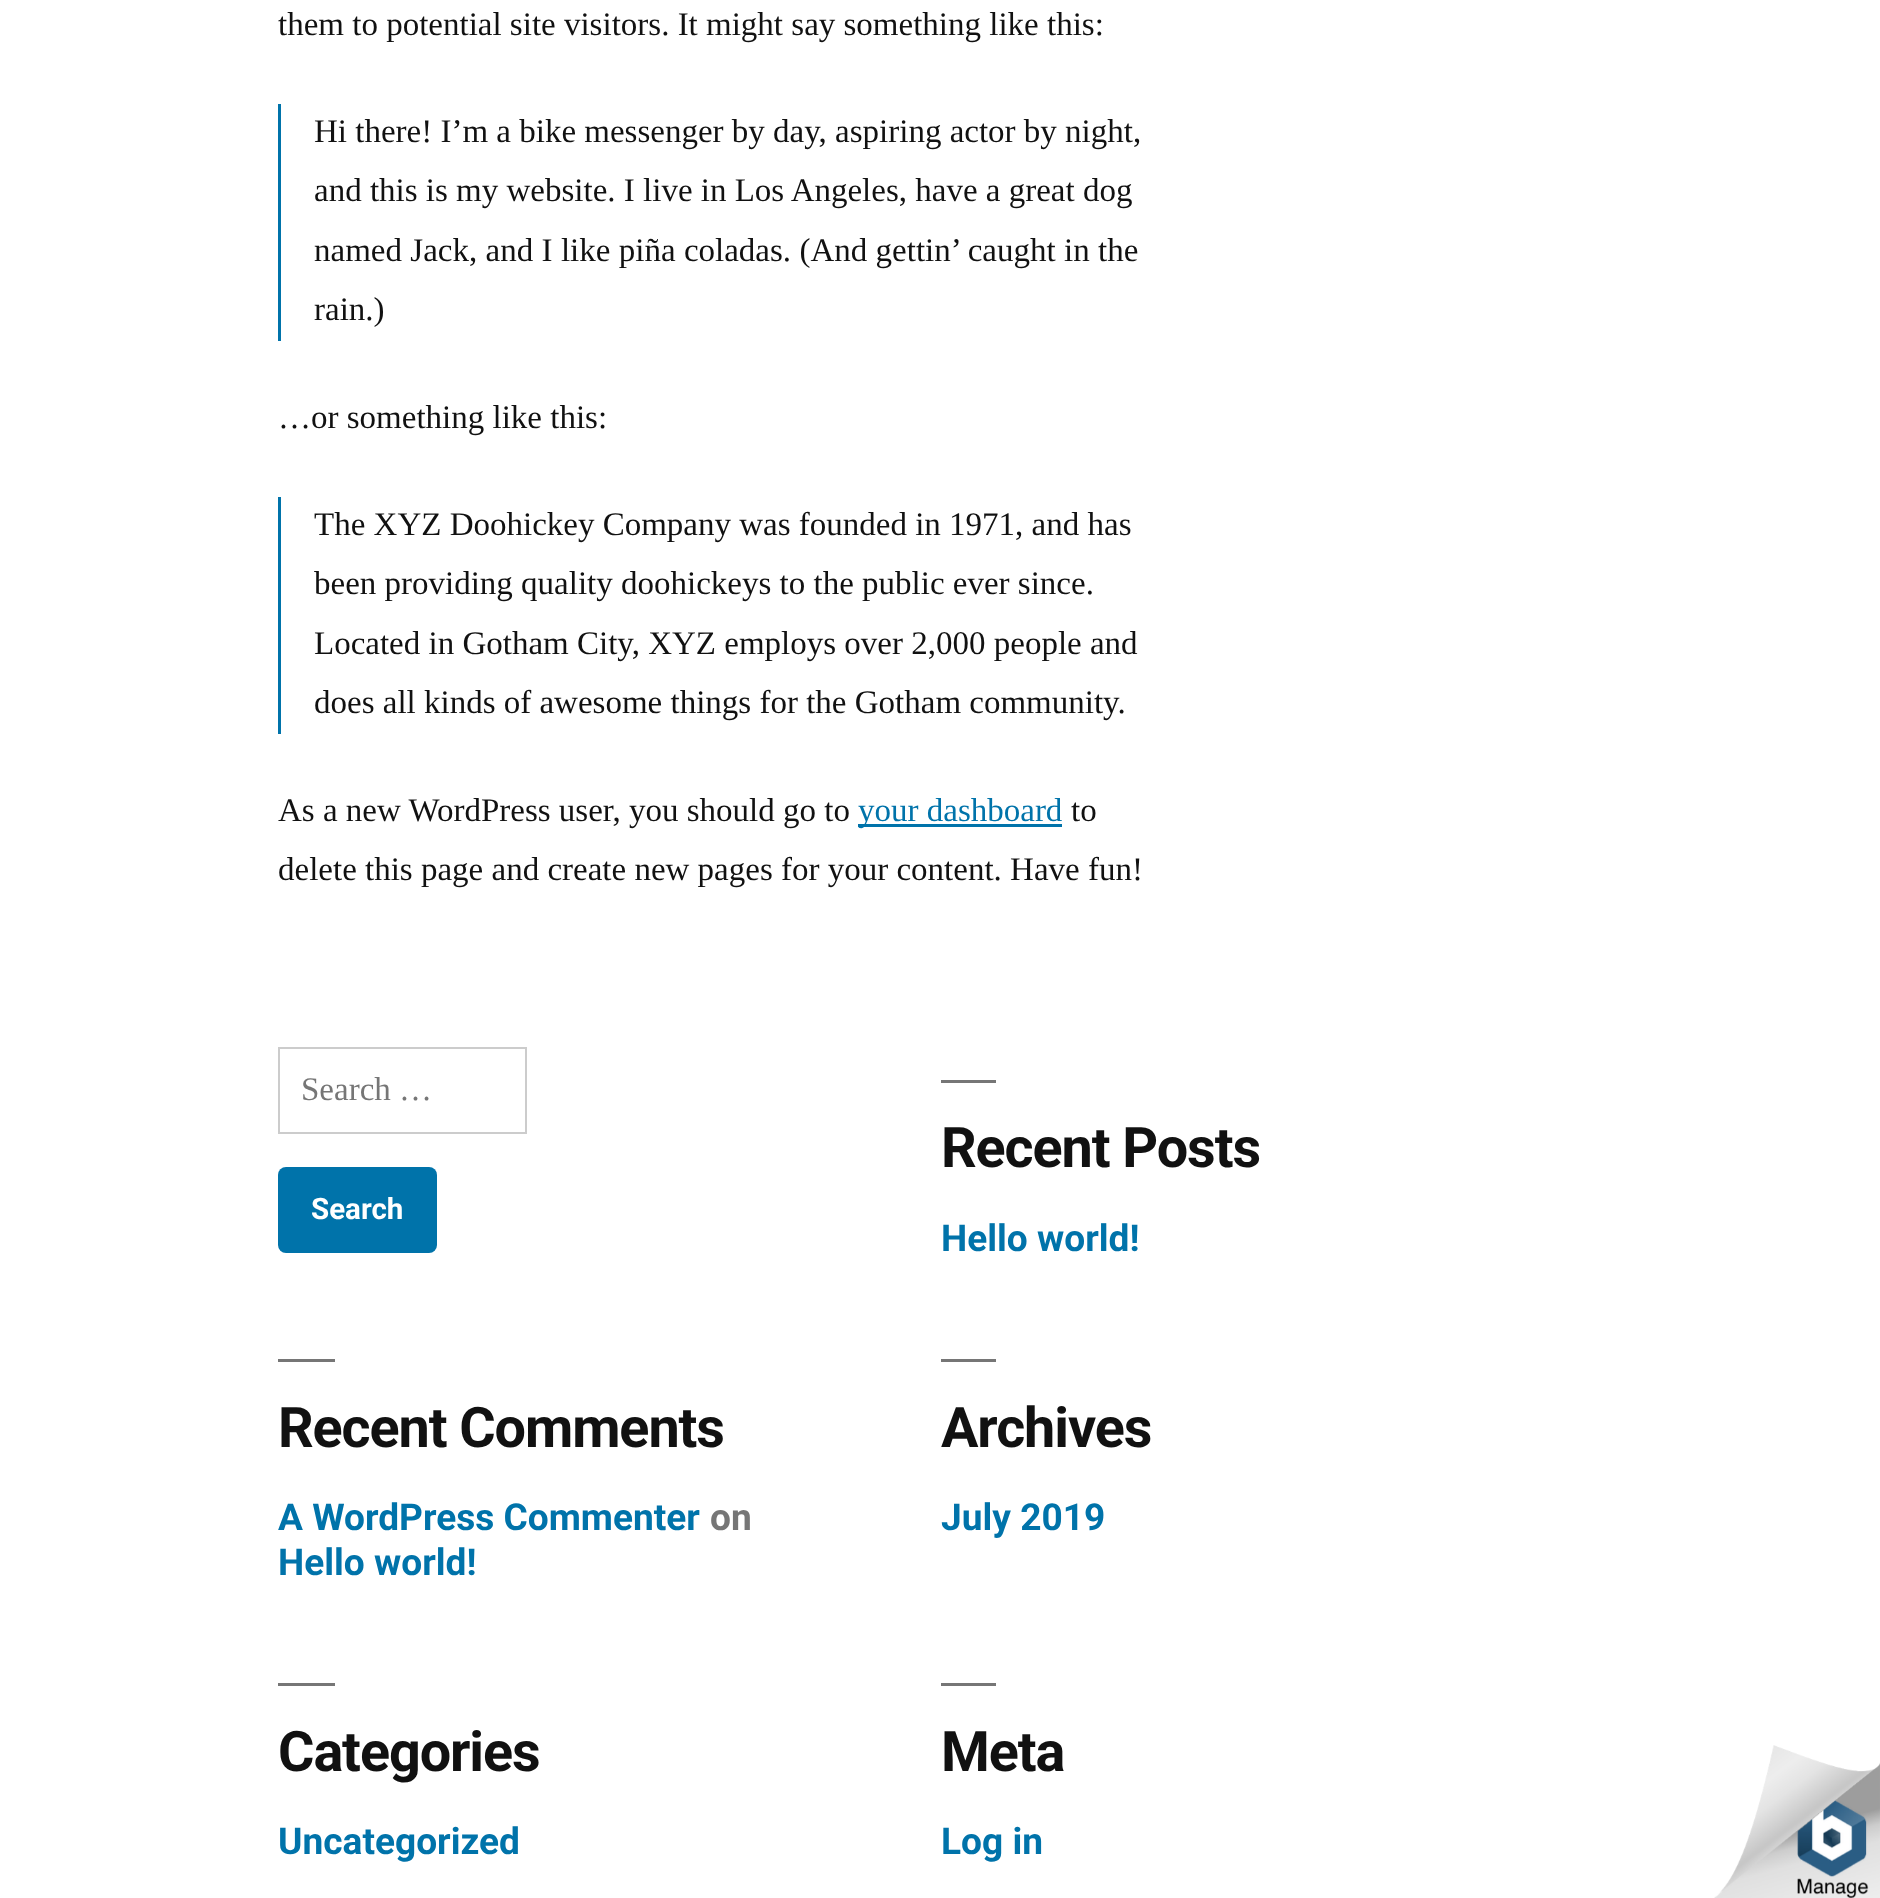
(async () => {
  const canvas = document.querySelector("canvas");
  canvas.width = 1880;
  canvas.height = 1898;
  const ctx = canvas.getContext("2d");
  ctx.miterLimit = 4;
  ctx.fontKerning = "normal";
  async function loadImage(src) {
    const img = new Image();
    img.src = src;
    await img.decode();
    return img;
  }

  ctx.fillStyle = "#ffffff";
  ctx.fillRect(0, 0, 1880, 1898);
  for (const [x, y, w, h, color] of [
    [278, 104, 3, 237, "#0073aa"],
    [278, 497, 3, 237, "#0073aa"],
    [858, 824, 204, 3, "#0073aa"],
  ]) {
    ctx.fillStyle = color;
    ctx.fillRect(x, y, w, h);
  }
  ctx.strokeStyle = "#cccccc";
  ctx.lineWidth = 2;
  ctx.strokeRect(279, 1048, 247, 85);
  ctx.beginPath();
  ctx.roundRect(278, 1167, 159, 86, 8);
  ctx.fill();
  for (const [x, y, w, h, color] of [
    [941, 1080, 55, 3, "#767676"],
    [278, 1359, 57, 3, "#767676"],
    [941, 1359, 55, 3, "#767676"],
    [278, 1683, 57, 3, "#767676"],
    [941, 1683, 55, 3, "#767676"],
  ]) {
    ctx.fillStyle = color;
    ctx.fillRect(x, y, w, h);
  }
  ctx.drawImage(await loadImage("img/1.png"), 1714, 1745, 166, 153);
  ctx.font = "33px Liberation Serif";
  ctx.fillStyle = "#111111";
  for (const [text, x, y] of [
    ["them to potential site visitors. It might say something like this:", 278, 35],
    ["Hi there! I’m a bike messenger by day, aspiring actor by night,", 314, 142],
    ["and this is my website. I live in Los Angeles, have a great dog", 314, 201],
  ]) {
    ctx.fillText(text, x, y);
  }
  ctx.wordSpacing = "0.1px";
  ctx.fillText("named Jack, and I like piña coladas. (And gettin’ caught in the", 314, 261);
  ctx.wordSpacing = "0px";
  for (const [text, x, y] of [
    ["rain.)", 314, 320],
    ["…or something like this:", 278, 428],
    ["The XYZ Doohickey Company was founded in 1971, and has", 314, 535],
    ["been providing quality doohickeys to the public ever since.", 314, 594],
    ["Located in Gotham City, XYZ employs over 2,000 people and", 314, 654],
    ["does all kinds of awesome things for the Gotham community.", 314, 713],
    ["As a new WordPress user, you should go to", 278, 821],
  ]) {
    ctx.fillText(text, x, y);
  }
  ctx.fillStyle = "#0073aa";
  ctx.fillText("your dashboard", 858, 821);
  ctx.fillStyle = "#111111";
  ctx.fillText("to", 1071, 821);
  ctx.fillText("delete this page and create new pages for your content. Have fun!", 278, 880);
  ctx.fillStyle = "#767676";
  ctx.fillText("Search …", 301, 1100);
  ctx.font = "bold 29.5px Roboto";
  ctx.fillStyle = "#ffffff";
  ctx.fillText("Search", 311, 1219);
  ctx.letterSpacing = "-1.1px";
  ctx.font = "bold 55.75px Roboto";
  ctx.fillStyle = "#111111";
  ctx.fillText("Recent Posts", 941, 1167);
  ctx.letterSpacing = "0px";
  ctx.font = "bold 37.1px Roboto";
  ctx.fillStyle = "#0073aa";
  ctx.fillText("Hello world!", 941, 1251);
  ctx.letterSpacing = "-1.1px";
  ctx.font = "bold 55.75px Roboto";
  ctx.fillStyle = "#111111";
  ctx.fillText("Recent Comments", 278, 1447);
  ctx.letterSpacing = "0px";
  ctx.font = "bold 37.1px Roboto";
  ctx.fillStyle = "#0073aa";
  ctx.fillText("A WordPress Commenter", 278, 1530);
  ctx.fillStyle = "#767676";
  ctx.fillText("on", 710, 1530);
  ctx.fillStyle = "#0073aa";
  ctx.fillText("Hello world!", 278, 1575);
  ctx.letterSpacing = "-1.1px";
  ctx.font = "bold 55.75px Roboto";
  ctx.fillStyle = "#111111";
  ctx.fillText("Archives", 941, 1447);
  ctx.letterSpacing = "0px";
  ctx.font = "bold 37.1px Roboto";
  ctx.fillStyle = "#0073aa";
  ctx.fillText("July 2019", 941, 1530);
  ctx.letterSpacing = "-1.1px";
  ctx.font = "bold 55.75px Roboto";
  ctx.fillStyle = "#111111";
  ctx.fillText("Categories", 278, 1771);
  ctx.letterSpacing = "0px";
  ctx.font = "bold 37.1px Roboto";
  ctx.fillStyle = "#0073aa";
  ctx.fillText("Uncategorized", 278, 1854);
  ctx.letterSpacing = "-1.1px";
  ctx.font = "bold 55.75px Roboto";
  ctx.fillStyle = "#111111";
  ctx.fillText("Meta", 941, 1771);
  ctx.letterSpacing = "0px";
  ctx.font = "bold 37.1px Roboto";
  ctx.fillStyle = "#0073aa";
  ctx.fillText("Log in", 941, 1854);
})();
